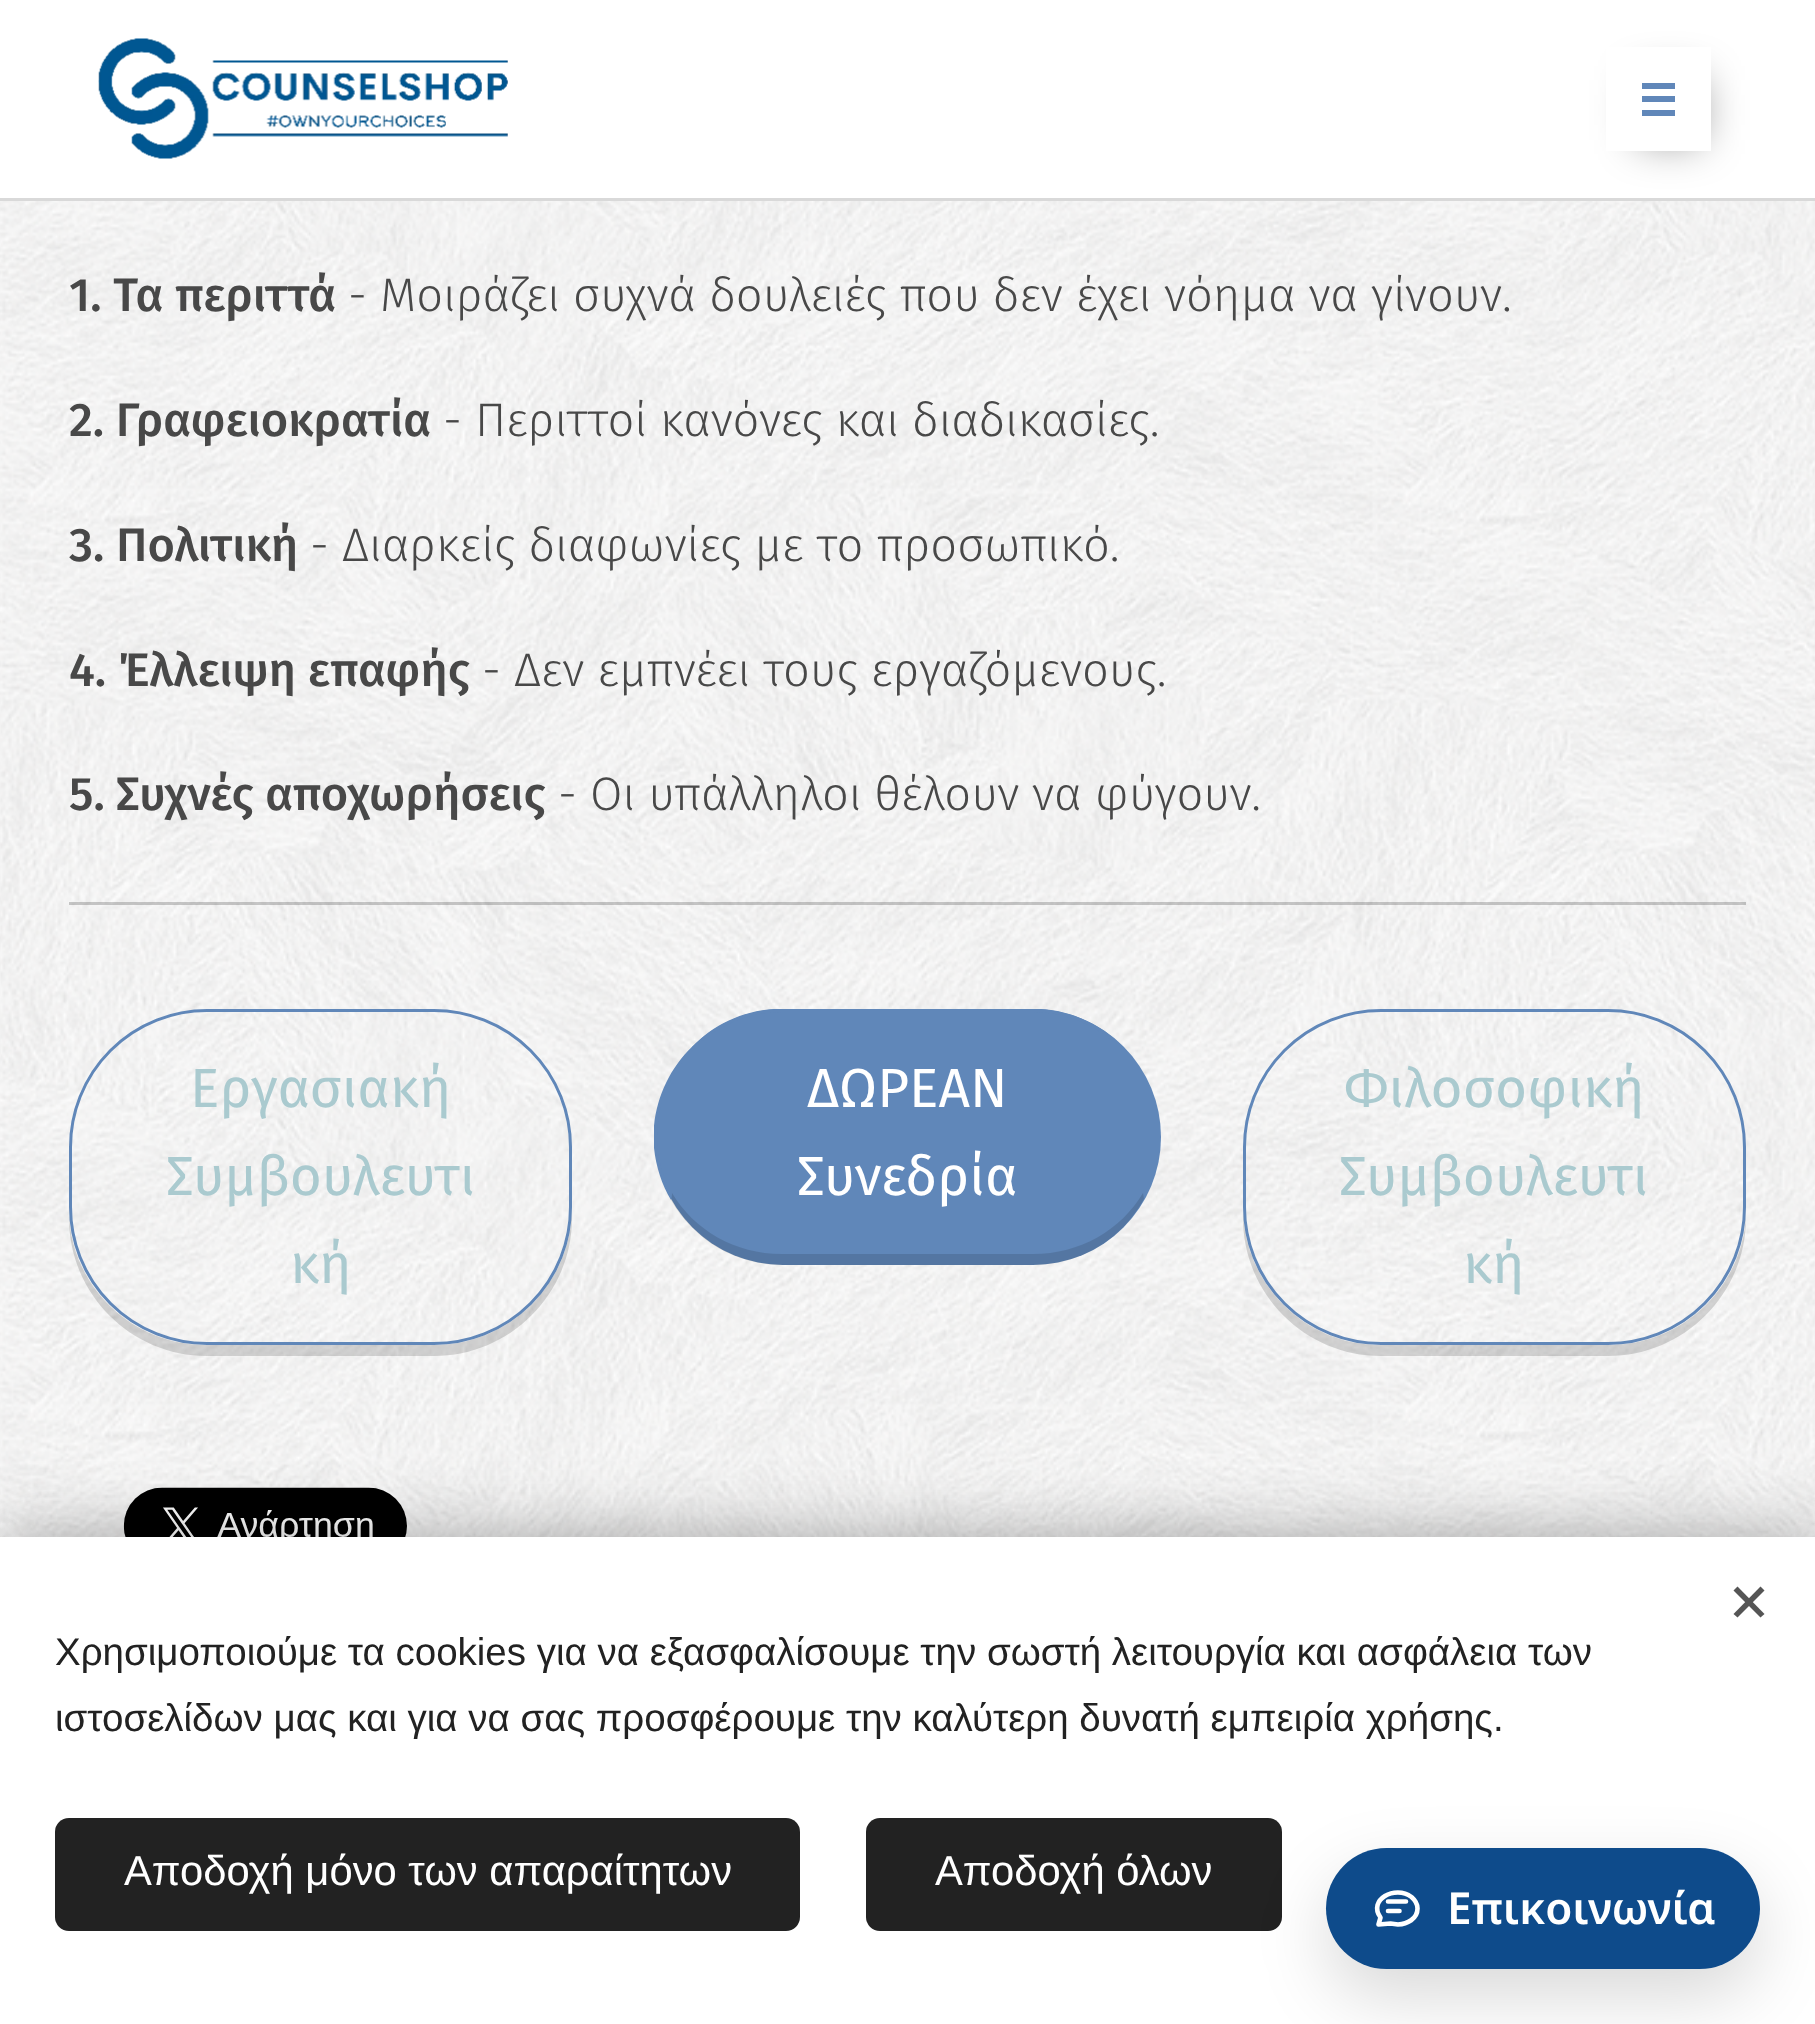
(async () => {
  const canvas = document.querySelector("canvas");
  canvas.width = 1815;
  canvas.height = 2024;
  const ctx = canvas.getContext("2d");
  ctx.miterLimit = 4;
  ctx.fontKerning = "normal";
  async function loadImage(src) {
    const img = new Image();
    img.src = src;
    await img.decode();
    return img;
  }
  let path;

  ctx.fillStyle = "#ffffff";
  ctx.fillRect(0, 0, 1815, 2024);
  ctx.fillStyle = "#d9d9d9";
  ctx.fillRect(0, 198, 1815, 3);
  ctx.drawImage(await loadImage("img/1.png"), 98, 38, 410, 121);
  ctx.drawImage(await loadImage("img/2.png"), 0, 201, 1815, 1336);
  ctx.fillStyle = "rgba(0, 0, 0, 0.5)";
  ctx.filter = "blur(22px)";
  ctx.beginPath();
  ctx.rect(1639, 80, 61, 60);
  ctx.fill();
  ctx.filter = "none";
  for (const [x, y, w, h, color] of [
    [1606, 47, 105, 104, "#ffffff"],
    [1642, 96, 33, 6, "#6087b9"],
    [1642, 83, 33, 6, "#6087b9"],
    [1642, 110, 33, 6, "#6087b9"],
    [69, 902, 1677, 3, "rgba(0, 0, 0, 0.2)"],
  ]) {
    ctx.fillStyle = color;
    ctx.fillRect(x, y, w, h);
  }
  ctx.fillStyle = "rgba(0, 0, 0, 0.15)";
  path = new Path2D("M69 1216V1218C69 1294 131 1356 207 1356H434C510 1356 572 1294 572 1218V1207C572 1283 510 1345 434 1345H206C133 1345 73 1288 69 1216Z");
  ctx.fill(path);
  ctx.beginPath();
  ctx.roundRect(70.5, 1010.5, 500, 333, 136.5);
  ctx.strokeStyle = "#6087b9";
  ctx.lineWidth = 3;
  ctx.stroke();
  ctx.fillStyle = "#6087b9";
  ctx.beginPath();
  ctx.roundRect(655, 1009, 506, 256, 128);
  ctx.fill();
  path = new Path2D("M782 1012C748 1012 716 1026 694 1049L692 1047C713 1025 742 1011 774 1009H1041C1073 1011 1102 1025 1123 1047L1121 1049C1099 1026 1067 1012 1033 1012Z");
  ctx.fill(path);
  ctx.fillStyle = "rgba(0, 0, 0, 0.12)";
  path = new Path2D("M782 1265H1033C1081 1265 1122 1239 1144 1199L1143 1193C1121 1230 1080 1254 1033 1254H782C735 1254 694 1230 672 1193L671 1200C693 1239 735 1265 782 1265Z");
  ctx.fill(path);
  ctx.fillStyle = "#6087b9";
  path = new Path2D("M654 1126C657 1095 671 1067 692 1047L694 1049C656 1086 645 1147 672 1193L671 1200C662 1185 656 1167 654 1148Z");
  ctx.fill(path);
  ctx.fillStyle = "rgba(0, 0, 0, 0.15)";
  path = new Path2D("M1243 1207V1218C1243 1294 1305 1356 1381 1356H1608C1684 1356 1746 1294 1746 1218V1216C1742 1288 1682 1345 1609 1345H1380C1305 1345 1243 1283 1243 1207Z");
  ctx.fill(path);
  ctx.beginPath();
  ctx.roundRect(1244.5, 1010.5, 500, 333, 136.5);
  ctx.stroke();
  ctx.drawImage(await loadImage("img/3.png"), 123, 1487, 284, 50);
  ctx.fillStyle = "rgba(0, 0, 0, 0.33)";
  ctx.filter = "blur(34.5px)";
  ctx.beginPath();
  ctx.rect(0, 1537, 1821, 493);
  ctx.fill();
  ctx.filter = "none";
  ctx.fillStyle = "#ffffff";
  ctx.fillRect(0, 1537, 1815, 487);
  ctx.fillStyle = "#555555";
  path = new Path2D("M1733.5 1614L1760.5 1586.5L1764.5 1590.5L1737.5 1617.5Z");
  ctx.fill(path);
  path = new Path2D("M1737.5 1586.5L1764.5 1614L1760.5 1617.5L1733.5 1590.5Z");
  ctx.fill(path);
  ctx.fillStyle = "#222222";
  ctx.beginPath();
  ctx.roundRect(55, 1818, 745, 113, 14);
  ctx.fill();
  ctx.beginPath();
  ctx.roundRect(866, 1818, 416, 113, 14);
  ctx.fill();
  ctx.fillStyle = "rgba(0, 0, 0, 0.15)";
  ctx.filter = "blur(34.5px)";
  ctx.beginPath();
  ctx.roundRect(1326, 1876, 434, 121, 60.5);
  ctx.fill();
  ctx.filter = "none";
  ctx.fillStyle = "#0e4b8b";
  ctx.beginPath();
  ctx.roundRect(1326, 1848, 434, 121, 60.5);
  ctx.fill();
  path = new Path2D("M1388 1901.5H1406M1388 1911H1399.5");
  ctx.strokeStyle = "#ffffff";
  ctx.lineWidth = 4.6;
  ctx.lineCap = "round";
  ctx.stroke(path);
  path = new Path2D("M1417.5 1908.5C1417.5 1919 1407 1924 1398 1924.5L1390.5 1923.5L1378.5 1924.5L1380.5 1917.5C1367.5 1900 1395 1884.5 1411.5 1897C1415 1900 1417.5 1904 1417.5 1908.5Z");
  ctx.lineJoin = "round";
  ctx.stroke(path);
  ctx.font = "500 47px Fira Sans";
  ctx.fillStyle = "#484848";
  ctx.fillText("1. Τα περιττά", 69, 311);
  ctx.font = "300 47px Fira Sans";
  ctx.fillText("- Μοιράζει συχνά δουλειές που δεν έχει νόημα να γίνουν.", 348, 311);
  ctx.font = "500 47px Fira Sans";
  ctx.fillText("2. Γραφειοκρατία", 69, 436);
  ctx.font = "300 47px Fira Sans";
  ctx.fillText("- Περιττοί κανόνες και διαδικασίες.", 443, 436);
  ctx.font = "500 47px Fira Sans";
  ctx.fillText("3. Πολιτική", 69, 561);
  ctx.font = "300 47px Fira Sans";
  ctx.fillText("- Διαρκείς διαφωνίες με το προσωπικό.", 310, 561);
  ctx.font = "500 47px Fira Sans";
  ctx.fillText("4.", 69, 686);
  ctx.fillText("Έλλειψη επαφής", 118, 686);
  ctx.font = "300 47px Fira Sans";
  ctx.fillText("- Δεν εμπνέει τους εργαζόμενους.", 482, 686);
  ctx.font = "500 47px Fira Sans";
  ctx.fillText("5.", 69, 810);
  ctx.fillText("Συχνές αποχωρήσεις", 116, 810);
  ctx.font = "300 47px Fira Sans";
  ctx.fillText("- Οι υπάλληλοι θέλουν να φύγουν.", 558, 810);
  ctx.font = "55px Fira Sans";
  ctx.fillStyle = "#aacacf";
  for (const [text, x, y] of [
    ["Εργασιακή", 190, 1107],
    ["Συμβουλευτι", 166, 1195],
    ["κή", 290, 1283],
  ]) {
    ctx.fillText(text, x, y);
  }
  ctx.fillStyle = "#ffffff";
  ctx.fillText("ΔΩΡΕΑΝ", 807, 1107);
  ctx.fillText("Συνεδρία", 797, 1195);
  ctx.fillStyle = "#aacacf";
  for (const [text, x, y] of [
    ["Φιλοσοφική", 1344, 1107],
    ["Συμβουλευτι", 1339, 1195],
    ["κή", 1463, 1283],
  ]) {
    ctx.fillText(text, x, y);
  }
  ctx.font = "38.5px Liberation Sans";
  ctx.fillStyle = "#222222";
  ctx.fillText("Χρησιμοποιούμε τα cookies για να εξασφαλίσουμε την σωστή λειτουργία και ασφάλεια των", 55, 1665);
  ctx.fillText("ιστοσελίδων μας και για να σας προσφέρουμε την καλύτερη δυνατή εμπειρία χρήσης.", 55, 1731);
  ctx.font = "41.75px Liberation Sans";
  ctx.fillStyle = "#ffffff";
  ctx.fillText("Αποδοχή μόνο των απαραίτητων", 124, 1885);
  ctx.fillText("Αποδοχή όλων", 935, 1885);
  ctx.font = "600 44px Noto Sans";
  ctx.fillText("Επικοινωνία", 1447, 1924);
})();
